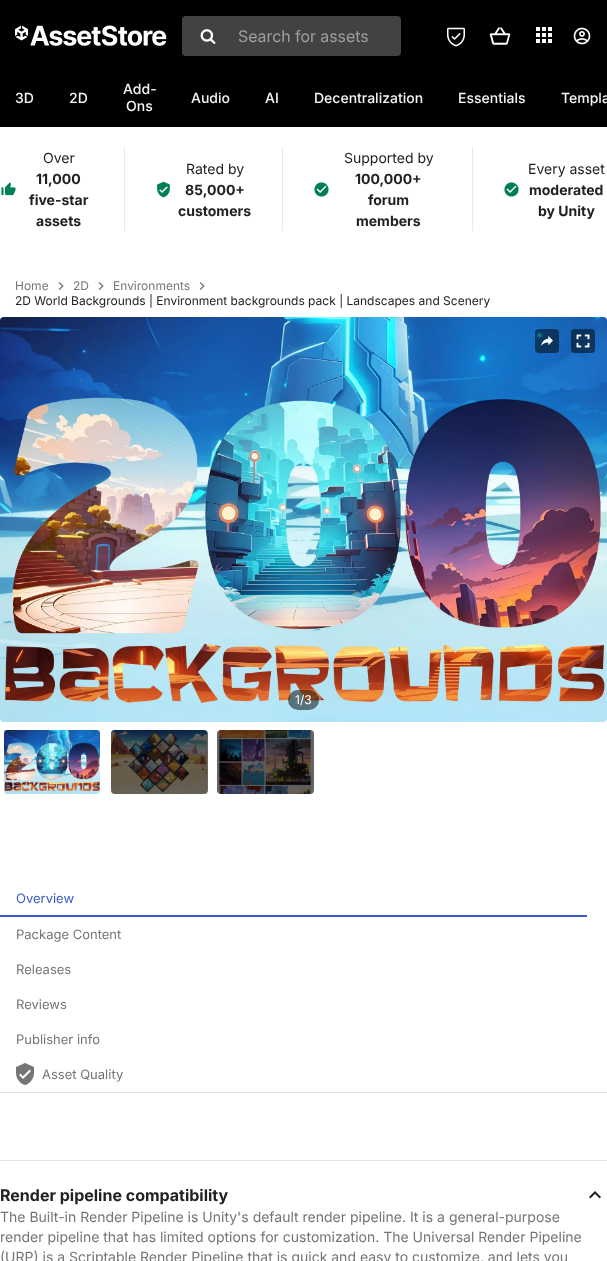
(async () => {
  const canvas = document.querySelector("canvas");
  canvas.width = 607;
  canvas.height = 1261;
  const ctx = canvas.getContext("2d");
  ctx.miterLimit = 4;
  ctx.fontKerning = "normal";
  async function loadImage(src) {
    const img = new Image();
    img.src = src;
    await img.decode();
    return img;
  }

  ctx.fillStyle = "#ffffff";
  ctx.fillRect(0, 0, 607, 1261);
  ctx.fillStyle = "#000000";
  ctx.fillRect(0, 0, 607, 127);
  ctx.drawImage(await loadImage("img/1.png"), 15, 25, 152, 21);
  ctx.fillStyle = "#424242";
  ctx.beginPath();
  ctx.roundRect(182, 16, 219, 40, 4);
  ctx.fill();
  ctx.drawImage(await loadImage("img/2.png"), 200, 29, 16, 15);
  ctx.drawImage(await loadImage("img/3.png"), 447, 27, 18, 20);
  ctx.drawImage(await loadImage("img/4.png"), 489, 27, 22, 18);
  ctx.drawImage(await loadImage("img/5.png"), 536, 27, 16, 16);
  ctx.drawImage(await loadImage("img/6.png"), 573, 27, 18, 18);
  ctx.drawImage(await loadImage("img/7.png"), 1, 182, 15, 14);
  ctx.fillStyle = "#e9e9e9";
  ctx.fillRect(282, 147, 1, 84);
  ctx.fillRect(124, 147, 1, 84);
  ctx.drawImage(await loadImage("img/8.png"), 157, 181, 13, 17);
  ctx.fillRect(472, 147, 1, 84);
  ctx.drawImage(await loadImage("img/9.png"), 314, 182, 15, 15);
  ctx.drawImage(await loadImage("img/9.png"), 504, 182, 15, 15);
  ctx.drawImage(await loadImage("img/10.png"), 58, 282, 6, 8);
  ctx.drawImage(await loadImage("img/10.png"), 98, 282, 6, 8);
  ctx.drawImage(await loadImage("img/10.png"), 199, 282, 6, 8);
  ctx.drawImage(await loadImage("img/13.png"), 0, 317, 607, 405);
  ctx.fillStyle = "rgba(0, 0, 0, 0.5)";
  ctx.beginPath();
  ctx.roundRect(535, 329, 24, 24, 4);
  ctx.fill();
  ctx.drawImage(await loadImage("img/11.png"), 541, 336, 12, 10);
  ctx.beginPath();
  ctx.roundRect(571, 329, 24, 24, 4);
  ctx.fill();
  ctx.drawImage(await loadImage("img/12.png"), 576, 334, 14, 14);
  ctx.beginPath();
  ctx.roundRect(288, 690, 31, 20, 10);
  ctx.fill();
  ctx.drawImage(await loadImage("img/14.png"), 4, 730, 96, 64);
  ctx.beginPath();
  ctx.roundRect(3.5, 729.5, 97, 65, 3.5);
  ctx.strokeStyle = "#ffffff";
  ctx.stroke();
  ctx.drawImage(await loadImage("img/15.png"), 111, 730, 96, 64);
  ctx.fillStyle = "rgba(0, 0, 0, 0.6)";
  ctx.beginPath();
  ctx.roundRect(111, 730, 97, 64, 4);
  ctx.fill();
  ctx.drawImage(await loadImage("img/16.png"), 217, 730, 96, 64);
  ctx.beginPath();
  ctx.roundRect(217, 730, 97, 64, 4);
  ctx.fill();
  ctx.fillStyle = "#e4e4e4";
  ctx.fillRect(0, 1092, 607, 1);
  ctx.fillStyle = "#3a5bc7";
  ctx.fillRect(0, 915, 587, 2);
  ctx.drawImage(await loadImage("img/17.png"), 16, 1063, 18, 22);
  ctx.fillStyle = "#e4e4e4";
  ctx.fillRect(0, 1160, 607, 1);
  ctx.drawImage(await loadImage("img/18.png"), 589, 1191, 12, 8);
  ctx.font = "16px 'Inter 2'";
  ctx.fillStyle = "#9e9e9e";
  ctx.fillText("Search for assets", 238, 42);
  ctx.font = "500 14px Inter";
  ctx.fillStyle = "#f5f5f5";
  for (const [text, x, y] of [
    ["3D", 15, 103],
    ["2D", 69, 103],
    ["Add-", 123, 94],
    ["Ons", 126, 111],
    ["Audio", 191, 103],
    ["AI", 265, 103],
    ["Decentralization", 314, 103],
    ["Essentials", 458, 103],
    ["Templa", 561, 103],
  ]) {
    ctx.fillText(text, x, y);
  }
  ctx.font = "14px Inter";
  ctx.fillStyle = "#212121";
  ctx.fillText("Over", 43, 163);
  ctx.font = "bold 14px Inter";
  for (const [text, x, y] of [
    ["11,000", 36, 184],
    ["five-star", 29, 205],
    ["assets", 36, 226],
  ]) {
    ctx.fillText(text, x, y);
  }
  ctx.font = "14px Inter";
  ctx.fillText("Rated by", 186, 174);
  ctx.font = "bold 14px Inter";
  ctx.fillText("85,000+", 185, 195);
  ctx.fillText("customers", 178, 216);
  ctx.font = "14px Inter";
  ctx.fillText("Supported by", 344, 163);
  ctx.font = "bold 14px Inter";
  for (const [text, x, y] of [
    ["100,000+", 355, 184],
    ["forum", 368, 205],
    ["members", 356, 226],
  ]) {
    ctx.fillText(text, x, y);
  }
  ctx.font = "14px Inter";
  ctx.fillText("Every asset", 528, 174);
  ctx.font = "bold 14px Inter";
  ctx.fillText("moderated", 529, 195);
  ctx.fillText("by Unity", 538, 216);
  ctx.font = "12px Inter";
  ctx.fillStyle = "#757575";
  for (const [text, x, y] of [
    ["Home", 15, 290],
    ["2D", 73, 290],
    ["Environments", 113, 290],
  ]) {
    ctx.fillText(text, x, y);
  }
  ctx.save();
  ctx.beginPath();
  ctx.rect(15, 294, 475, 14);
  ctx.clip();
  ctx.fillStyle = "#212121";
  ctx.fillText("2D World Backgrounds | Environment backgrounds pack | Landscapes and Scenery", 15, 305);
  ctx.restore();
  ctx.fillStyle = "#ffffff";
  ctx.fillText("1/3", 295, 704);
  ctx.font = "13px Inter";
  ctx.fillStyle = "#3a5bc7";
  ctx.fillText("Overview", 16, 903);
  ctx.fillStyle = "#757575";
  for (const [text, x, y] of [
    ["Package Content", 16, 939],
    ["Releases", 16, 974],
    ["Reviews", 16, 1009],
    ["Publisher info", 16, 1044],
    ["Asset Quality", 42, 1079],
  ]) {
    ctx.fillText(text, x, y);
  }
  ctx.font = "bold 16px Inter";
  ctx.fillStyle = "#212121";
  ctx.fillText("Render pipeline compatibility", 0, 1201);
  ctx.font = "14px Inter";
  ctx.fillStyle = "#757575";
  for (const [text, x, y] of [
    ["The Built-in Render Pipeline is Unity's default render pipeline. It is a general-purpose", 0, 1222],
    ["render pipeline that has limited options for customization. The Universal Render Pipeline", 0, 1242],
    ["(URP) is a Scriptable Render Pipeline that is quick and easy to customize, and lets you", 0, 1262],
  ]) {
    ctx.fillText(text, x, y);
  }
})();
